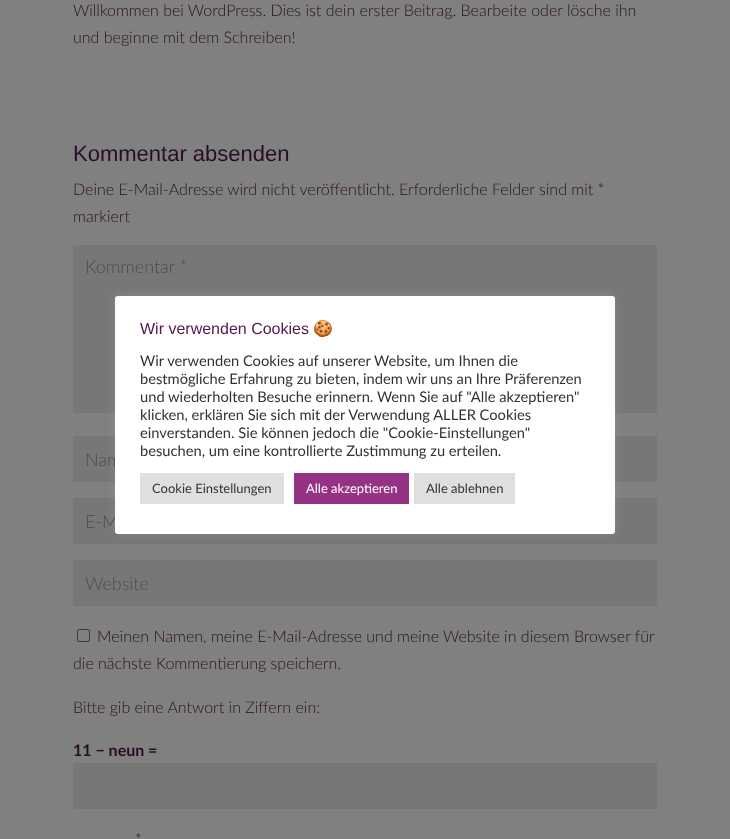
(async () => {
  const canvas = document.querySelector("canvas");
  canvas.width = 730;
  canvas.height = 839;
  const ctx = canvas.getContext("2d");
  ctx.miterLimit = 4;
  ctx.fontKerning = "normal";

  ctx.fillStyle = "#808080";
  ctx.fillRect(0, 0, 730, 839);
  for (const [x, y, w, h, color] of [
    [73, 245, 584, 168, "#777777"],
    [73, 436, 584, 46, "#777777"],
    [73, 498, 584, 46, "#777777"],
    [73, 560, 584, 46, "#777777"],
  ]) {
    ctx.fillStyle = color;
    ctx.fillRect(x, y, w, h);
  }
  ctx.beginPath();
  ctx.roundRect(77.5, 629.5, 12, 12, 1.5);
  ctx.strokeStyle = "#3b3b3b";
  ctx.stroke();
  ctx.fillRect(73, 763, 584, 46);
  ctx.fillStyle = "rgba(172, 171, 171, 0.3)";
  ctx.filter = "blur(5px)";
  ctx.beginPath();
  ctx.roundRect(115, 295, 500, 238, 3);
  ctx.fill();
  ctx.filter = "none";
  ctx.font = "300 16px Lato";
  ctx.fillStyle = "#290d25";
  ctx.fillText("Willkommen bei WordPress. Dies ist dein erster Beitrag. Bearbeite oder lösche ihn", 73, 16);
  ctx.fillText("und beginne mit dem Schreiben!", 73, 43);
  ctx.font = "22px Liberation Sans";
  ctx.fillText("Kommentar absenden", 73, 161);
  ctx.font = "300 16px Lato";
  ctx.fillText("Deine E-Mail-Adresse wird nicht veröffentlicht. Erforderliche Felder sind mit *", 73, 195);
  ctx.fillText("markiert", 73, 222);
  ctx.font = "300 18px Lato";
  ctx.fillStyle = "#4d4d4d";
  for (const [text, x, y] of [
    ["Kommentar *", 85, 273],
    ["Nam", 85, 466],
    ["E-M", 85, 528],
    ["Website", 85, 590],
  ]) {
    ctx.fillText(text, x, y);
  }
  ctx.font = "300 16px Lato";
  ctx.fillStyle = "#290d25";
  for (const [text, x, y] of [
    ["Meinen Namen, meine E-Mail-Adresse und meine Website in diesem Browser für", 97, 642],
    ["die nächste Kommentierung speichern.", 73, 669],
    ["Bitte gib eine Antwort in Ziffern ein:", 73, 713],
  ]) {
    ctx.fillText(text, x, y);
  }
  ctx.font = "bold 16px Lato";
  ctx.fillText("11 − neun =", 73, 756);
  ctx.font = "300 16px Lato";
  ctx.fillText("*", 135, 845);
  ctx.fillStyle = "#ffffff";
  ctx.beginPath();
  ctx.roundRect(115, 296, 500, 238, 3);
  ctx.fill();
  ctx.font = "16px Liberation Sans";
  ctx.fillStyle = "#52194a";
  ctx.fillText("Wir verwenden Cookies", 140, 334);
  ctx.font = "16px Noto Color Emoji";
  ctx.fillText("🍪", 313, 334);
  ctx.font = "14.7px Lato";
  ctx.fillStyle = "#333333";
  for (const [text, x, y] of [
    ["Wir verwenden Cookies auf unserer Website, um Ihnen die", 140, 366],
    ["bestmögliche Erfahrung zu bieten, indem wir uns an Ihre Präferenzen", 140, 384],
    ["und wiederholten Besuche erinnern. Wenn Sie auf \"Alle akzeptieren\"", 140, 402],
    ["klicken, erklären Sie sich mit der Verwendung ALLER Cookies", 140, 420],
    ["einverstanden. Sie können jedoch die \"Cookie-Einstellungen\"", 140, 438],
    ["besuchen, um eine kontrollierte Zustimmung zu erteilen.", 140, 456],
  ]) {
    ctx.fillText(text, x, y);
  }
  ctx.fillStyle = "#dedfe0";
  ctx.fillRect(140, 473, 144, 31);
  ctx.font = "13px Lato";
  ctx.fillStyle = "#333333";
  ctx.fillText("Cookie Einstellungen", 152, 493);
  ctx.fillStyle = "#963283";
  ctx.fillRect(294, 473, 115, 31);
  ctx.fillStyle = "#ffffff";
  ctx.fillText("Alle akzeptieren", 306, 493);
  ctx.fillStyle = "#dedfe0";
  ctx.fillRect(414, 473, 101, 31);
  ctx.fillStyle = "#333333";
  ctx.fillText("Alle ablehnen", 426, 493);
})();
